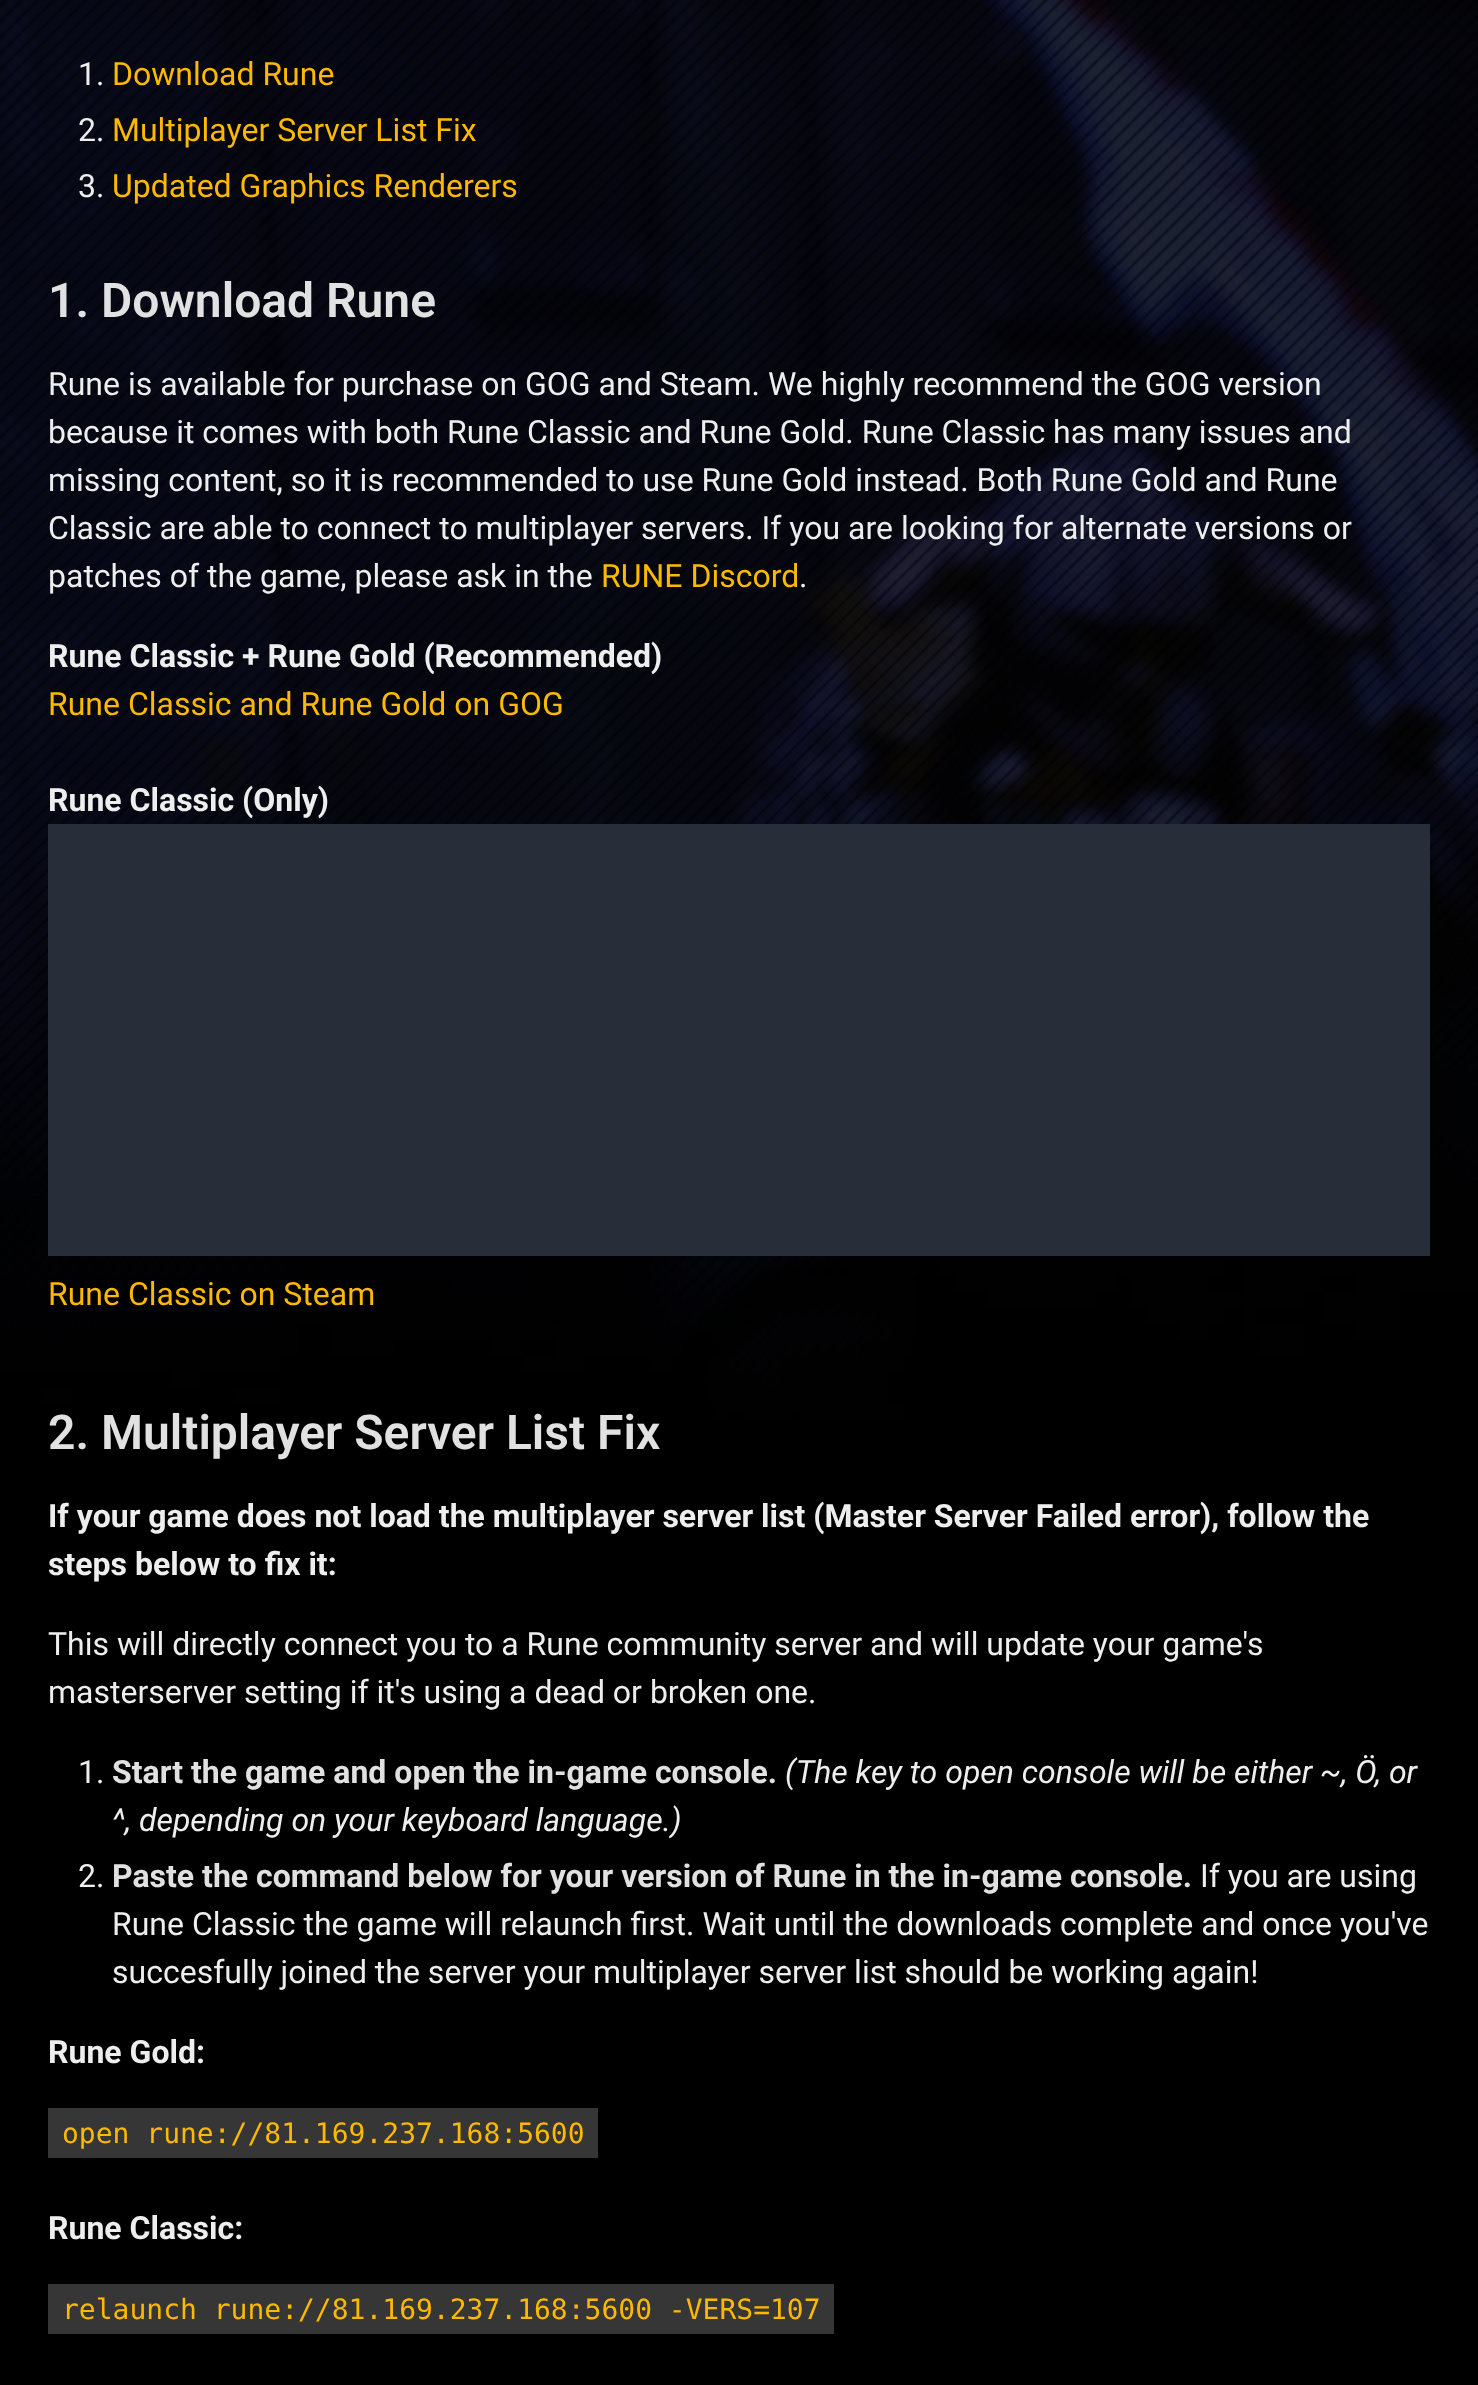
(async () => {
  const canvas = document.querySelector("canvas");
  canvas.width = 1478;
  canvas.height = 2385;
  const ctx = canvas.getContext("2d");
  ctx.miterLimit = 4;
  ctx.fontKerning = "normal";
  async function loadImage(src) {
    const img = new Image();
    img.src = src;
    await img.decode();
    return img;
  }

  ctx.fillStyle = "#000000";
  ctx.fillRect(0, 0, 1478, 2385);
  ctx.drawImage(await loadImage("img/1.png"), 0, 0, 1478, 1421);
  for (const [x, y, w, h, color] of [
    [48, 824, 1382, 432, "#282e39"],
    [48, 2108, 550, 50, "#363636"],
    [48, 2284, 786, 50, "#363636"],
  ]) {
    ctx.fillStyle = color;
    ctx.fillRect(x, y, w, h);
  }
  ctx.font = "32px Roboto";
  ctx.fillStyle = "#eeeeee";
  ctx.fillText("1.", 78, 85);
  ctx.fillStyle = "#fdb800";
  ctx.fillText("Download Rune", 112, 85);
  ctx.fillStyle = "#eeeeee";
  ctx.fillText("2.", 78, 141);
  ctx.fillStyle = "#fdb800";
  ctx.fillText("Multiplayer Server List Fix", 112, 141);
  ctx.fillStyle = "#eeeeee";
  ctx.fillText("3.", 78, 197);
  ctx.fillStyle = "#fdb800";
  ctx.fillText("Updated Graphics Renderers", 112, 197);
  ctx.font = "600 48px Roboto";
  ctx.fillStyle = "#e1e1e1";
  ctx.fillText("1. Download Rune", 48, 317);
  ctx.font = "32px Roboto";
  ctx.fillStyle = "#eeeeee";
  for (const [text, x, y] of [
    ["Rune is available for purchase on GOG and Steam. We highly recommend the GOG version", 48, 395],
    ["because it comes with both Rune Classic and Rune Gold. Rune Classic has many issues and", 48, 443],
    ["missing content, so it is recommended to use Rune Gold instead. Both Rune Gold and Rune", 48, 491],
    ["Classic are able to connect to multiplayer servers. If you are looking for alternate versions or", 48, 539],
    ["patches of the game, please ask in the", 48, 587],
  ]) {
    ctx.fillText(text, x, y);
  }
  ctx.fillStyle = "#fdb800";
  ctx.fillText("RUNE Discord", 601, 587);
  ctx.fillStyle = "#eeeeee";
  ctx.fillText(".", 799, 587);
  ctx.font = "bold 32px Roboto";
  ctx.fillText("Rune Classic + Rune Gold (Recommended)", 48, 667);
  ctx.font = "32px Roboto";
  ctx.fillStyle = "#fdb800";
  ctx.fillText("Rune Classic and Rune Gold on GOG", 48, 715);
  ctx.font = "bold 32px Roboto";
  ctx.fillStyle = "#eeeeee";
  ctx.fillText("Rune Classic (Only)", 48, 811);
  ctx.font = "32px Roboto";
  ctx.fillStyle = "#fdb800";
  ctx.fillText("Rune Classic on Steam", 48, 1305);
  ctx.font = "600 48px Roboto";
  ctx.fillStyle = "#e1e1e1";
  ctx.fillText("2. Multiplayer Server List Fix", 48, 1449);
  ctx.font = "bold 32px Roboto";
  ctx.fillStyle = "#eeeeee";
  ctx.fillText("If your game does not load the multiplayer server list (Master Server Failed error), follow the", 48, 1527);
  ctx.fillText("steps below to fix it:", 48, 1575);
  ctx.font = "32px Roboto";
  for (const [text, x, y] of [
    ["This will directly connect you to a Rune community server and will update your game's", 48, 1655],
    ["masterserver setting if it's using a dead or broken one.", 48, 1703],
    ["1.", 78, 1783],
  ]) {
    ctx.fillText(text, x, y);
  }
  ctx.font = "bold 32px Roboto";
  ctx.fillStyle = "#e1e1e1";
  ctx.fillText("Start the game and open the in-game console.", 112, 1783);
  ctx.font = "italic 32px Roboto";
  ctx.fillStyle = "#eeeeee";
  ctx.fillText("(The key to open console will be either ~, Ö, or", 785, 1783);
  ctx.fillText("^, depending on your keyboard language.)", 112, 1831);
  ctx.font = "32px Roboto";
  ctx.fillText("2.", 78, 1887);
  ctx.font = "bold 32px Roboto";
  ctx.fillStyle = "#e1e1e1";
  ctx.fillText("Paste the command below for your version of Rune in the in-game console.", 112, 1887);
  ctx.font = "32px Roboto";
  ctx.fillStyle = "#eeeeee";
  for (const [text, x, y] of [
    ["If you are using", 1200, 1887],
    ["Rune Classic the game will relaunch first. Wait until the downloads complete and once you've", 112, 1935],
    ["succesfully joined the server your multiplayer server list should be working again!", 112, 1983],
  ]) {
    ctx.fillText(text, x, y);
  }
  ctx.font = "bold 32px Roboto";
  ctx.fillText("Rune Gold:", 48, 2063);
  ctx.font = "28px DejaVu Sans Mono";
  ctx.fillStyle = "#fdb800";
  ctx.fillText("open rune://81.169.237.168:5600", 62, 2143);
  ctx.font = "bold 32px Roboto";
  ctx.fillStyle = "#eeeeee";
  ctx.fillText("Rune Classic:", 48, 2239);
  ctx.font = "28px DejaVu Sans Mono";
  ctx.fillStyle = "#fdb800";
  ctx.fillText("relaunch rune://81.169.237.168:5600 -VERS=107", 62, 2319);
})();
